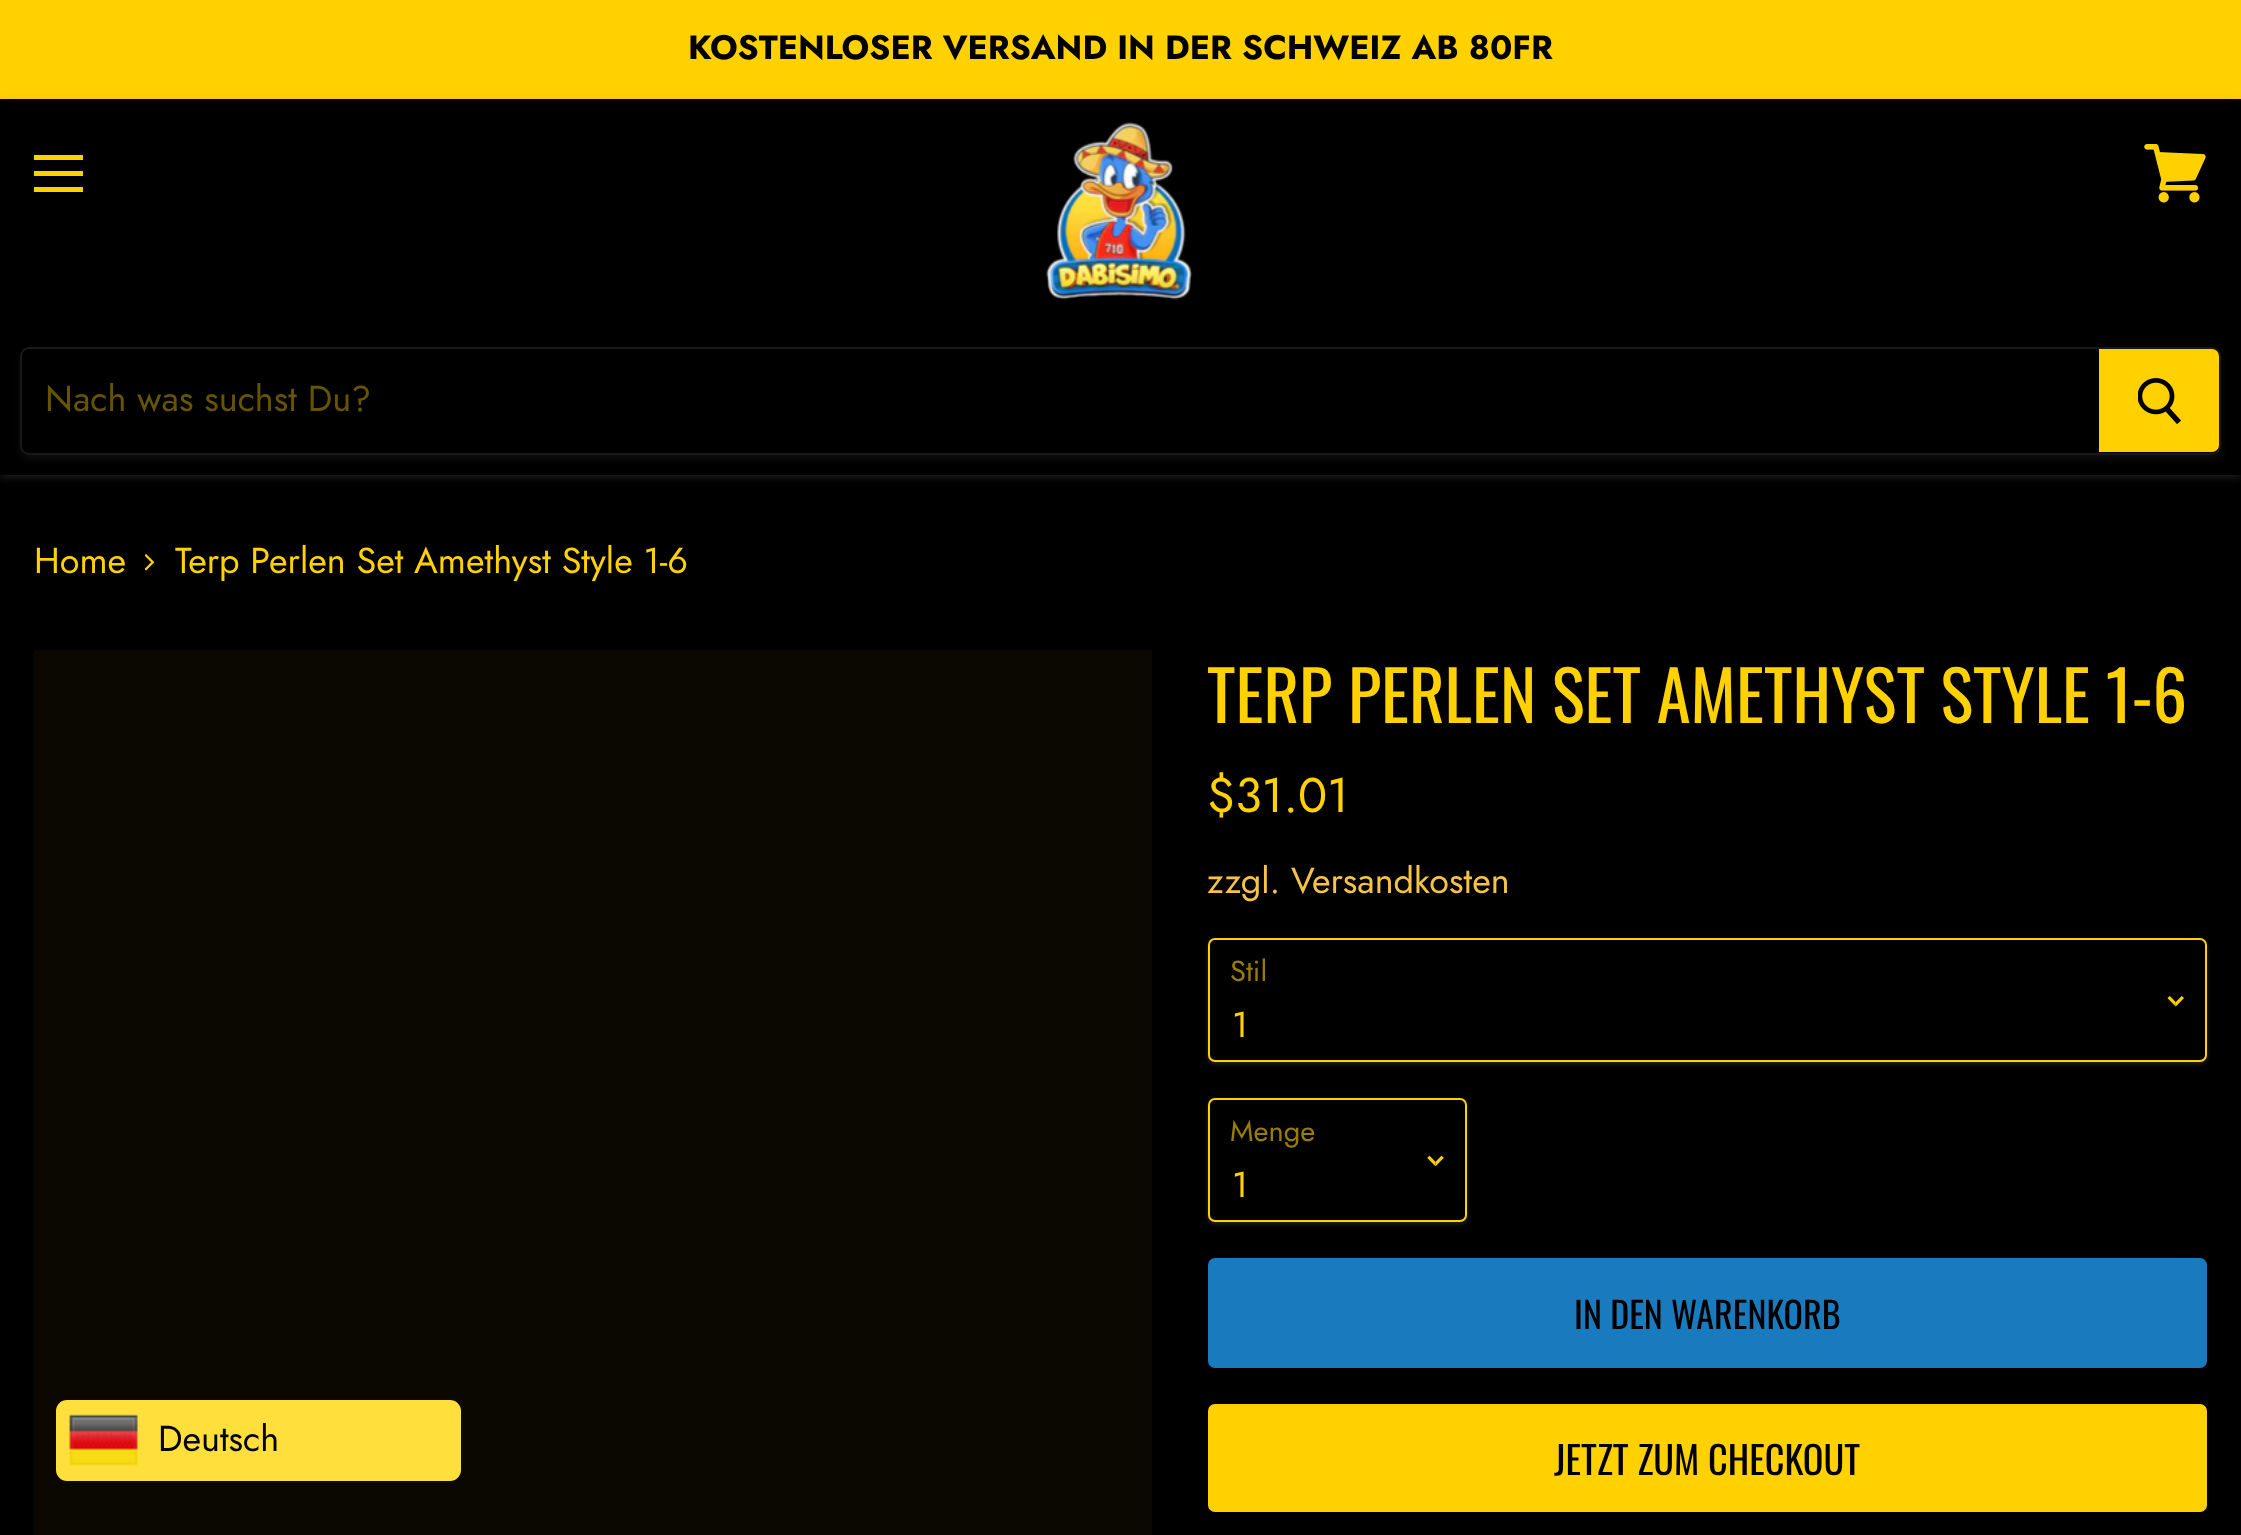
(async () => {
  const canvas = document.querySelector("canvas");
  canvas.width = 2241;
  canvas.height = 1535;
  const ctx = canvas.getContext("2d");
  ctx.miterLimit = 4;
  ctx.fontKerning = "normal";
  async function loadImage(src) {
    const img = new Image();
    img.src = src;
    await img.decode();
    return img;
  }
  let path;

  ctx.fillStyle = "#000000";
  ctx.fillRect(0, 0, 2241, 1535);
  ctx.fillStyle = "#ffd100";
  ctx.fillRect(0, 0, 2241, 99);
  ctx.fillStyle = "rgba(127, 127, 127, 0.25)";
  ctx.filter = "blur(4.5px)";
  ctx.beginPath();
  ctx.rect(0, 101, 2241, 376);
  ctx.fill();
  ctx.filter = "none";
  for (const [x, y, w, h, color] of [
    [0, 99, 2241, 376, "#000000"],
    [34, 155, 49, 5, "#ffd100"],
    [34, 171, 49, 5, "#ffd100"],
    [34, 187, 49, 5, "#ffd100"],
  ]) {
    ctx.fillStyle = color;
    ctx.fillRect(x, y, w, h);
  }
  ctx.drawImage(await loadImage("img/1.png"), 1046, 121, 147, 179);
  ctx.drawImage(await loadImage("img/2.png"), 2144, 144, 62, 59);
  ctx.save();
  path = new Path2D("M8 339H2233V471H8ZM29 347H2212C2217 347 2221 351 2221 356V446C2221 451 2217 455 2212 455H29C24 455 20 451 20 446V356C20 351 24 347 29 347Z");
  ctx.clip(path, "evenodd");
  ctx.fillStyle = "rgba(127, 127, 127, 0.11)";
  ctx.filter = "blur(3.5px)";
  ctx.beginPath();
  ctx.roundRect(20, 351, 2201, 108, 9);
  ctx.fill();
  ctx.filter = "none";
  ctx.restore();
  ctx.beginPath();
  ctx.roundRect(21, 348, 2199, 106, 8);
  ctx.strokeStyle = "rgba(127, 127, 127, 0.2)";
  ctx.lineWidth = 2;
  ctx.stroke();
  ctx.beginPath();
  ctx.roundRect(2100, 350, 118, 101, [0, 6, 6, 0]);
  ctx.fill();
  ctx.strokeStyle = "#ffd100";
  ctx.stroke();
  ctx.drawImage(await loadImage("img/3.png"), 2138, 378, 43, 47);
  ctx.drawImage(await loadImage("img/4.png"), 144, 554, 11, 17);
  ctx.fillStyle = "#0a0800";
  ctx.fillRect(34, 650, 1118, 885);
  ctx.fillStyle = "rgba(255, 255, 255, 0.15)";
  ctx.filter = "blur(2px)";
  ctx.beginPath();
  ctx.roundRect(1208, 941, 999, 123, 7);
  ctx.fill();
  ctx.filter = "none";
  ctx.fillStyle = "#000000";
  ctx.beginPath();
  ctx.roundRect(1209, 939, 997, 122, 6);
  ctx.fill();
  ctx.stroke();
  ctx.drawImage(await loadImage("img/5.png"), 2167, 996, 17, 11);
  ctx.fillStyle = "rgba(255, 255, 255, 0.15)";
  ctx.filter = "blur(2px)";
  ctx.beginPath();
  ctx.roundRect(1208, 1100, 259, 124, 7);
  ctx.fill();
  ctx.filter = "none";
  ctx.fillStyle = "#000000";
  ctx.beginPath();
  ctx.roundRect(1209, 1099, 257, 122, 6);
  ctx.fill();
  ctx.stroke();
  ctx.drawImage(await loadImage("img/6.png"), 1427, 1155, 17, 12);
  ctx.fillStyle = "#197bbd";
  ctx.beginPath();
  ctx.roundRect(1209, 1259, 997, 108, 6);
  ctx.fill();
  ctx.strokeStyle = "#197bbd";
  ctx.stroke();
  ctx.fillStyle = "#ffd100";
  ctx.beginPath();
  ctx.roundRect(1209, 1405, 997, 106, 6);
  ctx.fill();
  ctx.strokeStyle = "#ffd100";
  ctx.stroke();
  ctx.fillStyle = "#ffdf3b";
  ctx.beginPath();
  ctx.roundRect(56, 1400, 405, 81, 11);
  ctx.fill();
  ctx.drawImage(await loadImage("img/7.png"), 69, 1414, 69, 52);
  ctx.font = "bold 33.75px Jost";
  ctx.fillStyle = "#000000";
  ctx.fillText("KOSTENLOSER VERSAND IN DER SCHWEIZ AB 80FR", 688, 59);
  ctx.font = "36px Jost";
  ctx.fillStyle = "#665400";
  ctx.fillText("Nach was suchst Du?", 45, 411);
  ctx.fillStyle = "#ffd100";
  ctx.fillText("Home", 34, 573);
  ctx.fillText("Terp Perlen Set Amethyst Style 1-6", 175, 573);
  ctx.font = "68.8px Oswald";
  ctx.fillText("TERP PERLEN SET AMETHYST STYLE 1-6", 1207, 723);
  ctx.font = "48.5px Jost";
  ctx.fillText("$31.01", 1207, 812);
  ctx.font = "36px Jost";
  ctx.fillStyle = "#f6c347";
  ctx.fillText("zzgl. Versandkosten", 1207, 893);
  ctx.font = "29px Jost";
  ctx.fillStyle = "#997d00";
  ctx.fillText("Stil", 1230, 981);
  ctx.font = "36px Jost";
  ctx.fillStyle = "#ffd100";
  ctx.fillText("1", 1232, 1037);
  ctx.font = "29px Jost";
  ctx.fillStyle = "#997d00";
  ctx.fillText("Menge", 1230, 1141);
  ctx.font = "36px Jost";
  ctx.fillStyle = "#ffd100";
  ctx.fillText("1", 1232, 1197);
  ctx.font = "36px Oswald";
  ctx.fillStyle = "#000000";
  ctx.fillText("IN DEN WARENKORB", 1574, 1329);
  ctx.font = "38.25px Oswald";
  ctx.fillText("JETZT ZUM CHECKOUT", 1554, 1475);
  ctx.font = "36px Jost";
  ctx.fillText("Deutsch", 158, 1451);
})();
